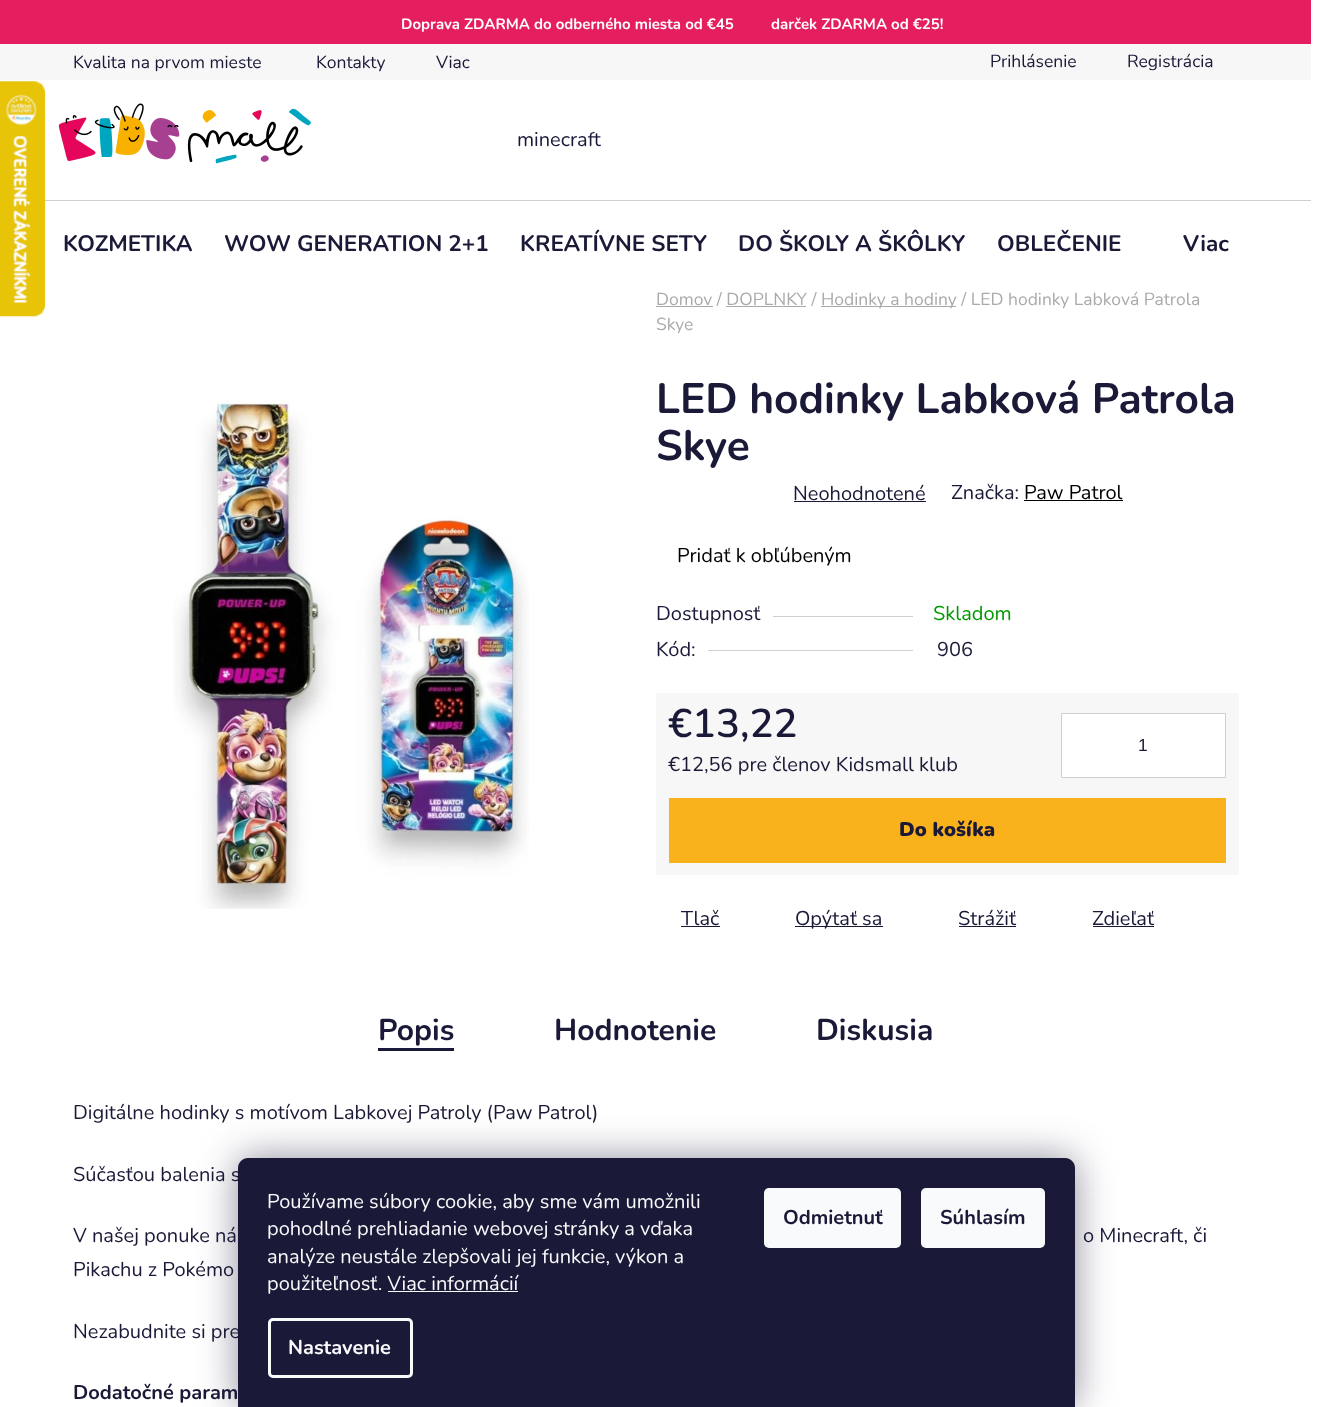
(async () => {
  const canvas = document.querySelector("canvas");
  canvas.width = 1329;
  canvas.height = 1407;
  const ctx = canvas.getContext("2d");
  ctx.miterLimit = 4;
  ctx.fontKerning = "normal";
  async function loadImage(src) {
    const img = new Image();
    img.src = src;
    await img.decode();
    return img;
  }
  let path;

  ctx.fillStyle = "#ffffff";
  ctx.fillRect(0, 0, 1329, 1407);
  ctx.drawImage(await loadImage("img/1.png"), 0, 81, 45, 236);
  ctx.fillStyle = "#e51e60";
  ctx.fillRect(0, 0, 1311, 44);
  ctx.fillStyle = "#f7f7f7";
  ctx.fillRect(0, 44, 1311, 36);
  ctx.drawImage(await loadImage("img/2.png"), 58, 103, 253, 61);
  for (const [x, y, w, h, color] of [
    [45, 200, 1266, 1, "#cfcfcf"],
    [656, 306, 57, 1, "#aaaaaa"],
    [821, 306, 135, 1, "#aaaaaa"],
    [726, 306, 80, 1, "#aaaaaa"],
  ]) {
    ctx.fillStyle = color;
    ctx.fillRect(x, y, w, h);
  }
  ctx.drawImage(await loadImage("img/3.png"), 173, 401, 356, 508);
  for (const [x, y, w, h, color] of [
    [794, 501, 132, 1, "#1a1937"],
    [1024, 500, 99, 1, "#000000"],
    [773, 616, 140, 1, "#cfcfcf"],
    [708, 650, 205, 1, "#cfcfcf"],
    [656, 693, 583, 182, "#f7f7f7"],
  ]) {
    ctx.fillStyle = color;
    ctx.fillRect(x, y, w, h);
  }
  ctx.fillStyle = "#ffffff";
  ctx.beginPath();
  ctx.rect(1061.5, 713.5, 164, 64);
  ctx.fill();
  ctx.strokeStyle = "#cfcfcf";
  ctx.stroke();
  for (const [x, y, w, h, color] of [
    [669, 798, 557, 65, "#f9b11c"],
    [681, 926, 39, 1, "#1a1937"],
    [795, 926, 88, 1, "#1a1937"],
    [959, 926, 57, 1, "#1a1937"],
    [1093, 926, 61, 1, "#1a1937"],
    [378, 1048, 76, 3, "#1a1937"],
  ]) {
    ctx.fillStyle = color;
    ctx.fillRect(x, y, w, h);
  }
  ctx.fillStyle = "rgba(27, 25, 57, 0.5)";
  ctx.filter = "blur(19px)";
  ctx.beginPath();
  ctx.roundRect(238, 1158, 837, 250, 10);
  ctx.fill();
  ctx.filter = "none";
  ctx.fillStyle = "#1a1937";
  path = new Path2D("M248 1158H1065C1070.5 1158 1075 1162.5 1075 1168V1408H238V1168C238 1162.5 242.5 1158 248 1158Z");
  ctx.fill(path);
  ctx.fillStyle = "#f8fafb";
  ctx.fillRect(388, 1291, 130, 1);
  ctx.beginPath();
  ctx.roundRect(269.5, 1319.5, 142, 57, 3.5);
  ctx.strokeStyle = "#f8fafb";
  ctx.lineWidth = 3;
  ctx.stroke();
  ctx.beginPath();
  ctx.roundRect(764, 1188, 137, 60, 5);
  ctx.fill();
  ctx.beginPath();
  ctx.roundRect(921, 1188, 124, 60, 5);
  ctx.fill();
  ctx.font = "bold 15px Nunito";
  ctx.fillStyle = "#ffffff";
  ctx.fillText("Doprava ZDARMA do odberného miesta od €45", 401, 29);
  ctx.fillText("darček ZDARMA od €25!", 771, 29);
  ctx.font = "17.5px Nunito";
  ctx.fillStyle = "#1a1937";
  for (const [text, x, y] of [
    ["Kvalita na prvom mieste", 73, 68],
    ["Kontakty", 316, 68],
    ["Viac", 436, 68],
    ["Prihlásenie", 990, 67],
    ["Registrácia", 1127, 67],
  ]) {
    ctx.fillText(text, x, y);
  }
  ctx.font = "20px Nunito";
  ctx.fillText("minecraft", 517, 146);
  ctx.font = "bold 22.5px Nunito";
  for (const [text, x, y] of [
    ["KOZMETIKA", 63, 251],
    ["WOW GENERATION 2+1", 224, 251],
    ["KREATÍVNE SETY", 520, 251],
    ["DO ŠKOLY A ŠKÔLKY", 738, 251],
    ["OBLEČENIE", 997, 251],
    ["Viac", 1183, 251],
  ]) {
    ctx.fillText(text, x, y);
  }
  ctx.font = "17.5px Nunito";
  ctx.fillStyle = "#aaaaaa";
  for (const [text, x, y] of [
    ["Domov / DOPLNKY /", 656, 305],
    ["Hodinky a hodiny / LED hodinky Labková Patrola", 821, 305],
    ["Skye", 656, 330],
  ]) {
    ctx.fillText(text, x, y);
  }
  ctx.font = "bold 42.5px Nunito";
  ctx.fillStyle = "#1a1937";
  ctx.fillText("LED hodinky Labková Patrola", 656, 413);
  ctx.fillText("Skye", 656, 460);
  ctx.font = "20px Nunito";
  ctx.fillText("Neohodnotené", 793, 500);
  ctx.fillText("Značka:", 951, 499);
  ctx.fillStyle = "#000000";
  ctx.fillText("Paw Patrol", 1024, 499);
  ctx.fillText("Pridať k obľúbeným", 677, 562);
  ctx.fillStyle = "#1a1937";
  ctx.fillText("Dostupnosť", 656, 620);
  ctx.fillStyle = "#009901";
  ctx.fillText("Skladom", 933, 620);
  ctx.fillStyle = "#1a1937";
  ctx.fillText("Kód:", 656, 656);
  ctx.fillText("906", 937, 656);
  ctx.font = "600 40px Nunito";
  ctx.fillText("€13,22", 668, 737);
  ctx.font = "20px Nunito";
  ctx.fillText("€12,56 pre členov Kidsmall klub", 668, 771);
  ctx.font = "17.5px Liberation Sans";
  ctx.fillText("1", 1138, 751);
  ctx.font = "900 20px Nunito";
  ctx.fillText("Do košíka", 899, 836);
  ctx.font = "20px Nunito";
  for (const [text, x, y] of [
    ["Tlač", 681, 925],
    ["Opýtať sa", 795, 925],
    ["Strážiť", 958, 925],
    ["Zdieľať", 1092, 925],
  ]) {
    ctx.fillText(text, x, y);
  }
  ctx.font = "bold 30px Nunito";
  for (const [text, x, y] of [
    ["Popis", 378, 1040],
    ["Hodnotenie", 554, 1040],
    ["Diskusia", 816, 1040],
  ]) {
    ctx.fillText(text, x, y);
  }
  ctx.font = "20px Nunito";
  for (const [text, x, y] of [
    ["Digitálne hodinky s motívom Labkovej Patroly (Paw Patrol)", 73, 1119],
    ["Súčasťou balenia s", 73, 1181],
    ["V našej ponuke ná", 73, 1242],
    ["o Minecraft, či", 1083, 1242],
    ["Pikachu z Pokémo", 73, 1276],
    ["Nezabudnite si pre", 73, 1338],
  ]) {
    ctx.fillText(text, x, y);
  }
  ctx.font = "bold 20px Nunito";
  ctx.fillText("Dodatočné param", 73, 1399);
  ctx.font = "20px Nunito";
  ctx.fillStyle = "#f8fafb";
  for (const [text, x, y] of [
    ["Používame súbory cookie, aby sme vám umožnili", 267, 1208],
    ["pohodlné prehliadanie webovej stránky a vďaka", 267, 1235],
    ["analýze neustále zlepšovali jej funkcie, výkon a", 267, 1263],
    ["použiteľnosť. Viac informácií", 267, 1290],
  ]) {
    ctx.fillText(text, x, y);
  }
  ctx.font = "bold 20px Nunito";
  ctx.fillText("Nastavenie", 288, 1354);
  ctx.fillStyle = "#1a1937";
  ctx.fillText("Odmietnuť", 783, 1224);
  ctx.fillText("Súhlasím", 940, 1224);
})();
